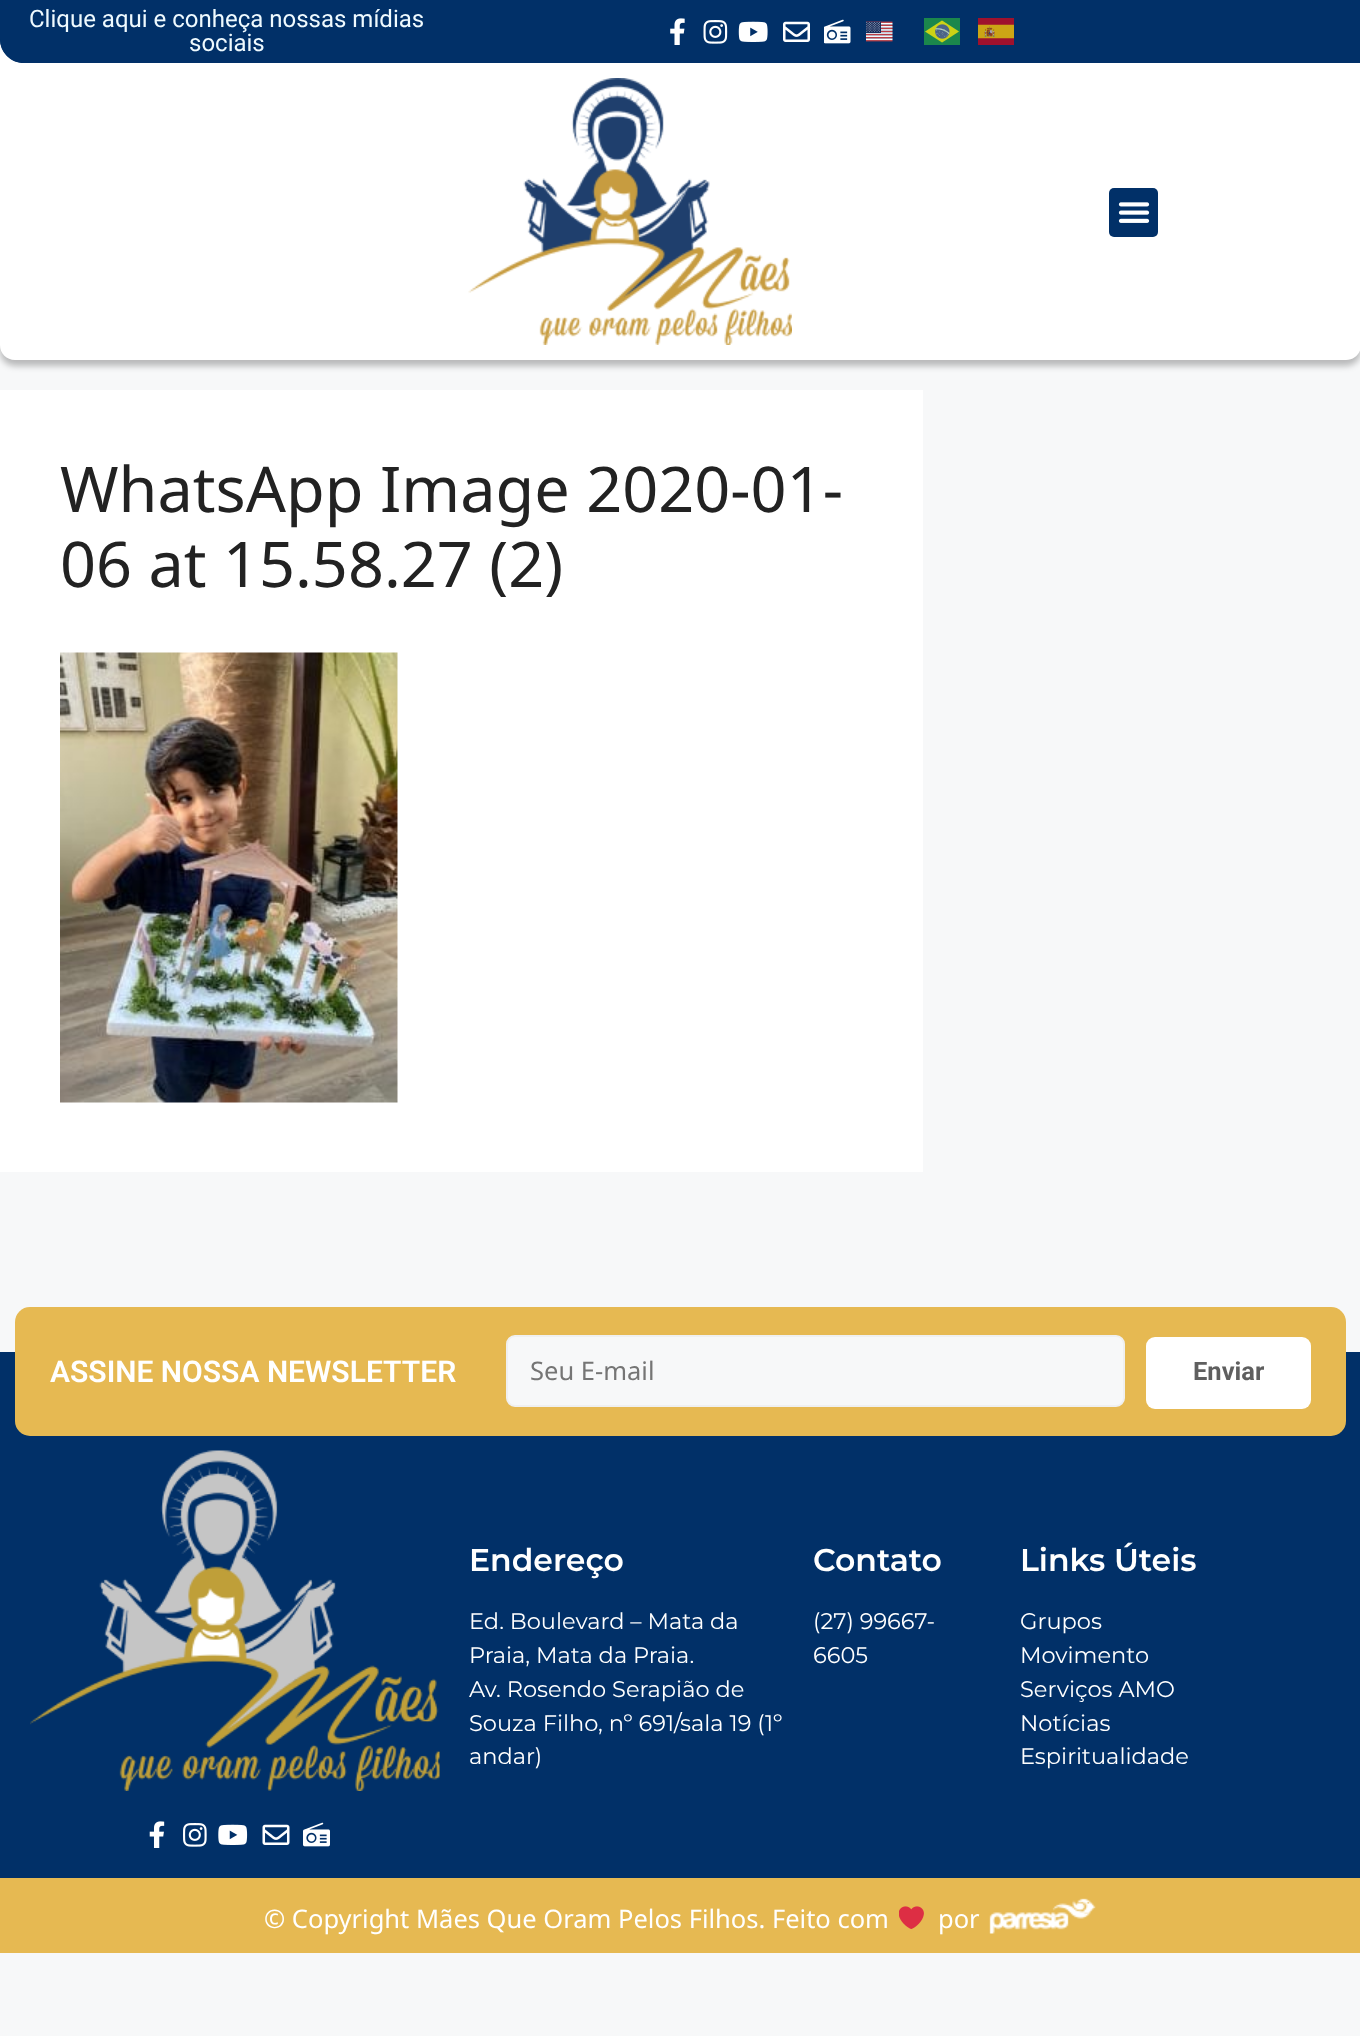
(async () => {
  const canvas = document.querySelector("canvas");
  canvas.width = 1360;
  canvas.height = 2036;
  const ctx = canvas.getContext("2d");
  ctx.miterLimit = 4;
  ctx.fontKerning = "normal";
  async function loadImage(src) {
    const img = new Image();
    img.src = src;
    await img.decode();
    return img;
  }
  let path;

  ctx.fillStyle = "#f7f8f9";
  ctx.fillRect(0, 0, 1360, 2036);
  ctx.fillStyle = "rgba(0, 0, 0, 0.25)";
  ctx.filter = "blur(3px)";
  ctx.beginPath();
  ctx.roundRect(0, 6, 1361, 360, 15);
  ctx.fill();
  ctx.filter = "none";
  ctx.fillStyle = "#ffffff";
  path = new Path2D("M0 0H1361V345C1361 353.5 1354.5 360 1346 360H15C6.5 360 0 353.5 0 345Z");
  ctx.fill(path);
  ctx.fillStyle = "#013068";
  path = new Path2D("M0 0H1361V63H24C10.5 63 0 52.5 0 39Z");
  ctx.fill(path);
  ctx.beginPath();
  ctx.roundRect(0, 0, 453, 63, [0, 0, 0, 24]);
  ctx.fill();
  ctx.drawImage(await loadImage("img/1.png"), 670, 18, 15, 27);
  ctx.drawImage(await loadImage("img/2.png"), 703, 20, 25, 24);
  ctx.drawImage(await loadImage("img/3.png"), 738, 21, 30, 21);
  ctx.drawImage(await loadImage("img/4.png"), 783, 21, 27, 21);
  ctx.drawImage(await loadImage("img/5.png"), 824, 19, 27, 25);
  ctx.drawImage(await loadImage("img/6.png"), 866, 21, 27, 21);
  ctx.drawImage(await loadImage("img/7.png"), 924, 18, 36, 27);
  ctx.drawImage(await loadImage("img/8.png"), 978, 18, 36, 27);
  ctx.drawImage(await loadImage("img/9.png"), 468, 78, 324, 267);
  ctx.beginPath();
  ctx.roundRect(1109, 188, 49, 49, 5);
  ctx.fill();
  ctx.drawImage(await loadImage("img/10.png"), 1118, 202, 32, 21);
  ctx.fillStyle = "#ffffff";
  ctx.fillRect(0, 390, 923, 782);
  ctx.drawImage(await loadImage("img/11.png"), 60, 652, 338, 451);
  ctx.fillStyle = "#013068";
  ctx.fillRect(0, 1352, 1360, 526);
  ctx.fillStyle = "#e6b952";
  ctx.beginPath();
  ctx.roundRect(15, 1307, 476, 129, [15, 0, 0, 15]);
  ctx.fill();
  ctx.beginPath();
  ctx.roundRect(491, 1307, 855, 129, [0, 15, 15, 0]);
  ctx.fill();
  ctx.fillStyle = "#f7f8f9";
  ctx.beginPath();
  ctx.roundRect(507, 1336, 617, 70, 8);
  ctx.fill();
  ctx.strokeStyle = "#f0f0f0";
  ctx.lineWidth = 2;
  ctx.stroke();
  ctx.fillStyle = "#ffffff";
  ctx.beginPath();
  ctx.roundRect(1146, 1337, 165, 72, 9);
  ctx.fill();
  ctx.drawImage(await loadImage("img/12.png"), 30, 1450, 410, 341);
  ctx.drawImage(await loadImage("img/13.png"), 149, 1821, 16, 27);
  ctx.drawImage(await loadImage("img/14.png"), 183, 1823, 24, 24);
  ctx.drawImage(await loadImage("img/15.png"), 218, 1824, 30, 21);
  ctx.drawImage(await loadImage("img/16.png"), 262, 1824, 28, 21);
  ctx.drawImage(await loadImage("img/17.png"), 303, 1822, 27, 25);
  ctx.fillStyle = "#e6b952";
  ctx.fillRect(0, 1878, 1360, 75);
  ctx.drawImage(await loadImage("img/18.png"), 899, 1906, 25, 23);
  ctx.drawImage(await loadImage("img/19.png"), 989, 1898, 107, 36);
  ctx.font = "24px Roboto";
  ctx.fillStyle = "#effaff";
  ctx.fillText("Clique aqui e conheça nossas mídias", 29, 27);
  ctx.fillText("sociais", 189, 51);
  ctx.font = "63px Noto Sans";
  ctx.fillStyle = "#222222";
  ctx.fillText("WhatsApp Image 2020-01-", 60, 512);
  ctx.fillText("06 at 15.58.27 (2)", 60, 587);
  ctx.font = "600 30px Roboto";
  ctx.fillStyle = "#ffffff";
  ctx.fillText("ASSINE NOSSA NEWSLETTER", 50, 1382);
  ctx.font = "25.5px Noto Sans";
  ctx.fillStyle = "#757575";
  ctx.fillText("Seu E-mail", 530, 1380);
  ctx.font = "bold 25.5px Roboto";
  ctx.fillStyle = "#5f5f5f";
  ctx.fillText("Enviar", 1193, 1380);
  ctx.font = "600 31.5px Montserrat";
  ctx.fillStyle = "#ffffff";
  ctx.fillText("Endereço", 469, 1571);
  ctx.font = "22.5px Montserrat";
  for (const [text, x, y] of [
    ["Ed. Boulevard – Mata da", 469, 1629],
    ["Praia, Mata da Praia.", 469, 1663],
    ["Av. Rosendo Serapião de", 469, 1697],
    ["Souza Filho, nº 691/sala 19 (1º", 469, 1731],
    ["andar)", 469, 1764],
  ]) {
    ctx.fillText(text, x, y);
  }
  ctx.font = "600 31.5px Montserrat";
  ctx.fillText("Contato", 813, 1571);
  ctx.font = "22.5px Montserrat";
  ctx.fillText("(27) 99667-", 813, 1629);
  ctx.fillText("6605", 813, 1663);
  ctx.font = "600 31.5px Montserrat";
  ctx.fillText("Links Úteis", 1020, 1571);
  ctx.font = "22.5px Montserrat";
  for (const [text, x, y] of [
    ["Grupos", 1020, 1629],
    ["Movimento", 1020, 1663],
    ["Serviços AMO", 1020, 1697],
    ["Notícias", 1020, 1731],
    ["Espiritualidade", 1020, 1764],
  ]) {
    ctx.fillText(text, x, y);
  }
  ctx.font = "25.5px Noto Sans";
  ctx.fillText("© Copyright Mães Que Oram Pelos Filhos. Feito com", 264, 1928);
  ctx.fillText("por", 938, 1928);
})();
